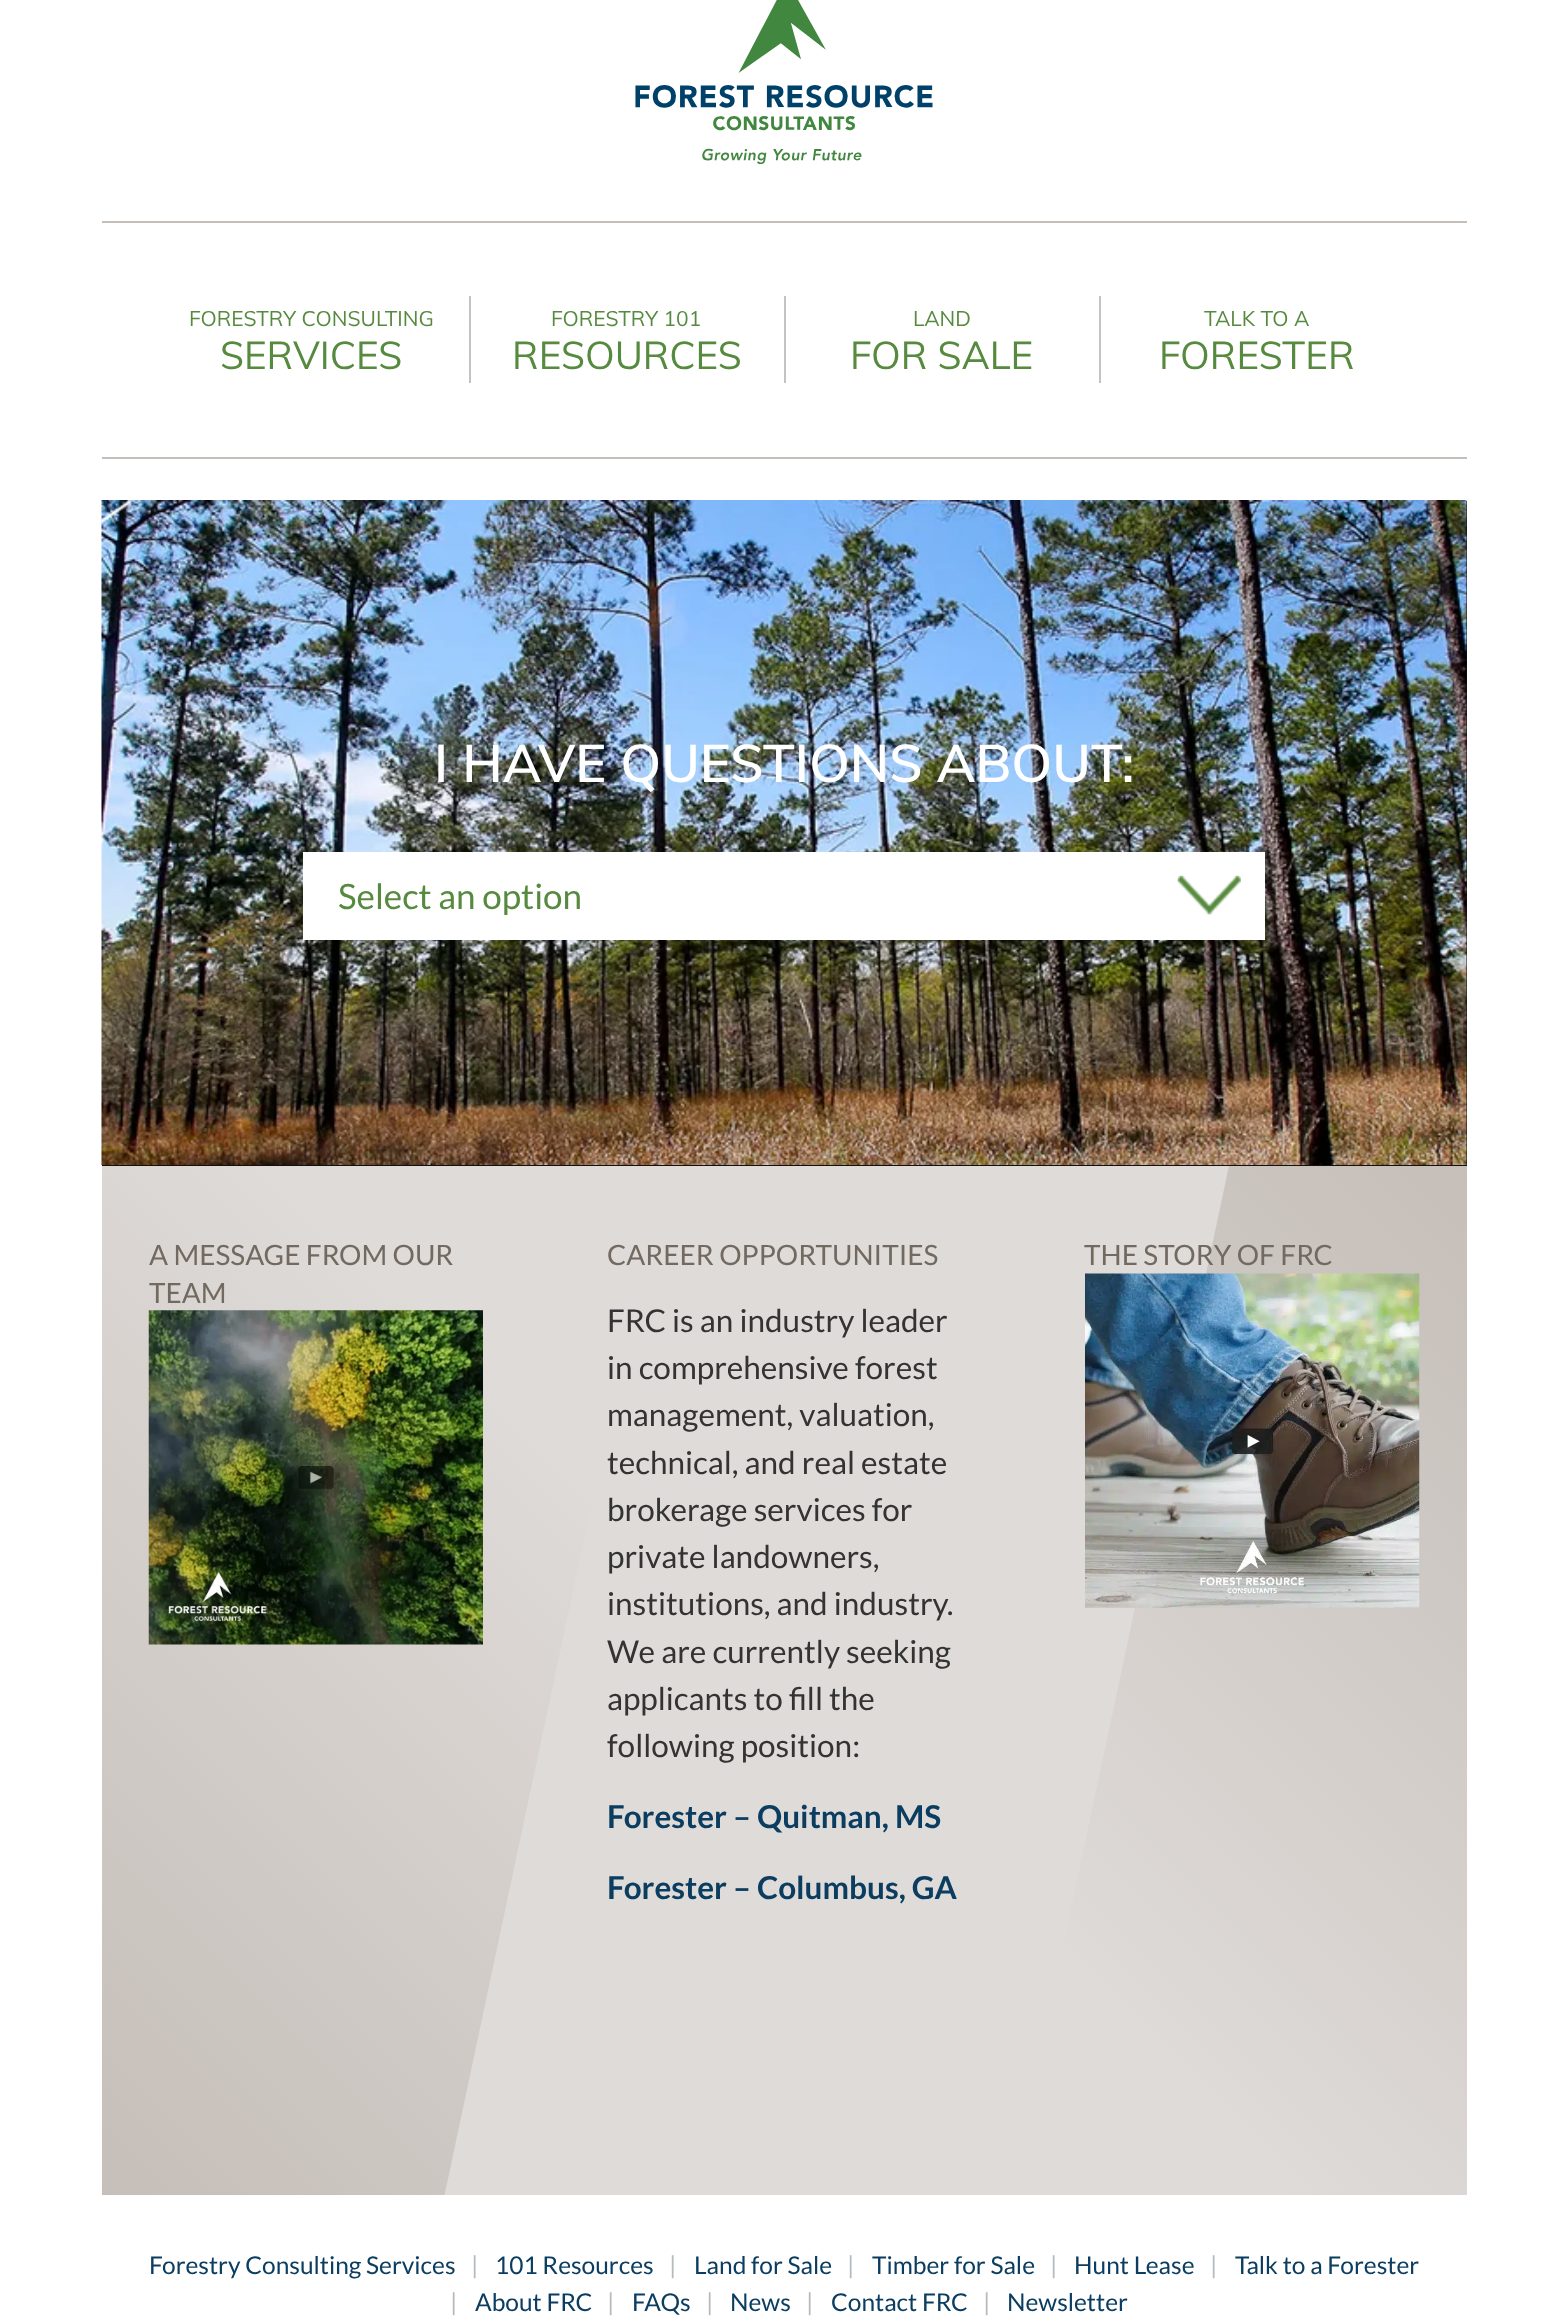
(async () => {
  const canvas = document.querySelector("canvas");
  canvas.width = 1567;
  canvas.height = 2322;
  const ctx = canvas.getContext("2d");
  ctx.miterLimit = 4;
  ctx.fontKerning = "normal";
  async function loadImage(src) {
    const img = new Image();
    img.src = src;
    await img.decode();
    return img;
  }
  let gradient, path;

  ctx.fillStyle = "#ffffff";
  ctx.fillRect(0, 0, 1567, 2322);
  ctx.fillStyle = "#c5beb9";
  ctx.fillRect(102, 457, 1365, 2);
  ctx.fillRect(102, 221, 1365, 2);
  ctx.drawImage(await loadImage("img/1.png"), 635, 0, 298, 164);
  for (const [x, y, w, h, color] of [
    [469, 296, 2, 87, "#c0c4c7"],
    [784, 296, 2, 87, "#c0c4c7"],
    [1099, 296, 2, 87, "#c0c4c7"],
    [102, 501, 1365, 665, "#111111"],
  ]) {
    ctx.fillStyle = color;
    ctx.fillRect(x, y, w, h);
  }
  ctx.drawImage(await loadImage("img/2.png"), 101, 500, 1366, 665);
  ctx.drawImage(await loadImage("img/3.png"), 101, 500, 31, 24);
  ctx.fillStyle = "#ffffff";
  ctx.fillRect(303, 852, 962, 88);
  ctx.drawImage(await loadImage("img/4.png"), 1177, 875, 64, 40);
  ctx.fillStyle = "#dfdbd8";
  ctx.fillRect(593, 1166, 382, 1029);
  gradient = ctx.createLinearGradient(-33, 2060, 728, 1300);
  gradient.addColorStop(0, "#c5beb9");
  gradient.addColorStop(0.8, "#dfdbd8");
  ctx.fillStyle = gradient;
  ctx.fillRect(102, 1166, 491, 1029);
  ctx.save();
  ctx.beginPath();
  ctx.rect(102, 1166, 491, 1029);
  ctx.clip();
  ctx.fillStyle = "#dfdbd8";
  path = new Path2D("M723 886L1065 959L638 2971L295 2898Z");
  ctx.fill(path);
  ctx.restore();
  ctx.drawImage(await loadImage("img/5.png"), 148, 1310, 335, 335);
  gradient = ctx.createLinearGradient(840, 2060, 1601, 1300);
  gradient.addColorStop(0.2, "#dfdbd8");
  gradient.addColorStop(1, "#c5beb9");
  ctx.fillStyle = gradient;
  ctx.fillRect(1010, 1166, 457, 1029);
  ctx.save();
  ctx.beginPath();
  ctx.rect(975, 1166, 492, 1029);
  ctx.clip();
  ctx.fillStyle = "#dfdbd8";
  path = new Path2D("M930 886L1273 959L845 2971L503 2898Z");
  ctx.fill(path);
  ctx.restore();
  ctx.drawImage(await loadImage("img/6.png"), 1085, 1273, 335, 335);
  ctx.font = "21px Muli";
  ctx.fillStyle = "#568a3e";
  ctx.fillText("FORESTRY CONSULTING", 189, 326);
  ctx.font = "38.5px Muli";
  ctx.fillText("SERVICES", 220, 369);
  ctx.font = "21px Muli";
  ctx.fillText("FORESTRY 101", 551, 326);
  ctx.font = "38.5px Muli";
  ctx.fillText("RESOURCES", 512, 369);
  ctx.font = "21px Muli";
  ctx.fillText("LAND", 913, 326);
  ctx.font = "38.5px Muli";
  ctx.fillText("FOR SALE", 850, 369);
  ctx.font = "21px Muli";
  ctx.fillText("TALK TO A", 1204, 326);
  ctx.font = "38.5px Muli";
  ctx.fillText("FORESTER", 1159, 369);
  ctx.font = "600 52.5px Muli";
  ctx.fillStyle = "#ffffff";
  ctx.fillText("I HAVE QUESTIONS ABOUT:", 434, 782);
  ctx.font = "35px Lato";
  ctx.fillStyle = "#568a3e";
  ctx.fillText("Select an option", 338, 909);
  ctx.font = "28px Lato";
  ctx.fillStyle = "#726a61";
  for (const [text, x, y] of [
    ["A MESSAGE FROM OUR", 149, 1265],
    ["TEAM", 149, 1303],
    ["CAREER OPPORTUNITIES", 607, 1265],
  ]) {
    ctx.fillText(text, x, y);
  }
  ctx.font = "31.5px Lato";
  ctx.fillStyle = "#333333";
  for (const [text, x, y] of [
    ["FRC is an industry leader", 607, 1332],
    ["in comprehensive forest", 607, 1379],
    ["management, valuation,", 607, 1426],
    ["technical, and real estate", 607, 1474],
    ["brokerage services for", 607, 1521],
    ["private landowners,", 607, 1568],
    ["institutions, and industry.", 607, 1615],
    ["We are currently seeking", 607, 1663],
    ["applicants to fill the", 607, 1710],
    ["following position:", 607, 1757],
  ]) {
    ctx.fillText(text, x, y);
  }
  ctx.font = "bold 31.5px Lato";
  ctx.fillStyle = "#0b3d60";
  ctx.fillText("Forester – Quitman, MS", 607, 1828);
  ctx.fillText("Forester – Columbus, GA", 607, 1899);
  ctx.font = "28px Lato";
  ctx.fillStyle = "#726a61";
  ctx.fillText("THE STORY OF FRC", 1084, 1265);
  ctx.font = "24.5px Lato";
  ctx.fillStyle = "#0b3d60";
  ctx.fillText("Forestry Consulting Services", 149, 2274);
  ctx.fillStyle = "#b5babe";
  ctx.fillText("|", 471, 2274);
  ctx.fillStyle = "#0b3d60";
  ctx.fillText("101 Resources", 495, 2274);
  ctx.fillStyle = "#b5babe";
  ctx.fillText("|", 669, 2274);
  ctx.fillStyle = "#0b3d60";
  ctx.fillText("Land for Sale", 694, 2274);
  ctx.fillStyle = "#b5babe";
  ctx.fillText("|", 847, 2274);
  ctx.fillStyle = "#0b3d60";
  ctx.fillText("Timber for Sale", 872, 2274);
  ctx.fillStyle = "#b5babe";
  ctx.fillText("|", 1050, 2274);
  ctx.fillStyle = "#0b3d60";
  ctx.fillText("Hunt Lease", 1074, 2274);
  ctx.fillStyle = "#b5babe";
  ctx.fillText("|", 1210, 2274);
  ctx.fillStyle = "#0b3d60";
  ctx.fillText("Talk to a Forester", 1235, 2274);
  ctx.fillStyle = "#b5babe";
  ctx.fillText("|", 450, 2311);
  ctx.fillStyle = "#0b3d60";
  ctx.fillText("About FRC", 475, 2311);
  ctx.fillStyle = "#b5babe";
  ctx.fillText("|", 607, 2311);
  ctx.fillStyle = "#0b3d60";
  ctx.fillText("FAQs", 632, 2311);
  ctx.fillStyle = "#b5babe";
  ctx.fillText("|", 706, 2311);
  ctx.fillStyle = "#0b3d60";
  ctx.fillText("News", 730, 2311);
  ctx.fillStyle = "#b5babe";
  ctx.fillText("|", 806, 2311);
  ctx.fillStyle = "#0b3d60";
  ctx.fillText("Contact FRC", 831, 2311);
  ctx.fillStyle = "#b5babe";
  ctx.fillText("|", 983, 2311);
  ctx.fillStyle = "#0b3d60";
  ctx.fillText("Newsletter", 1007, 2311);
})();
